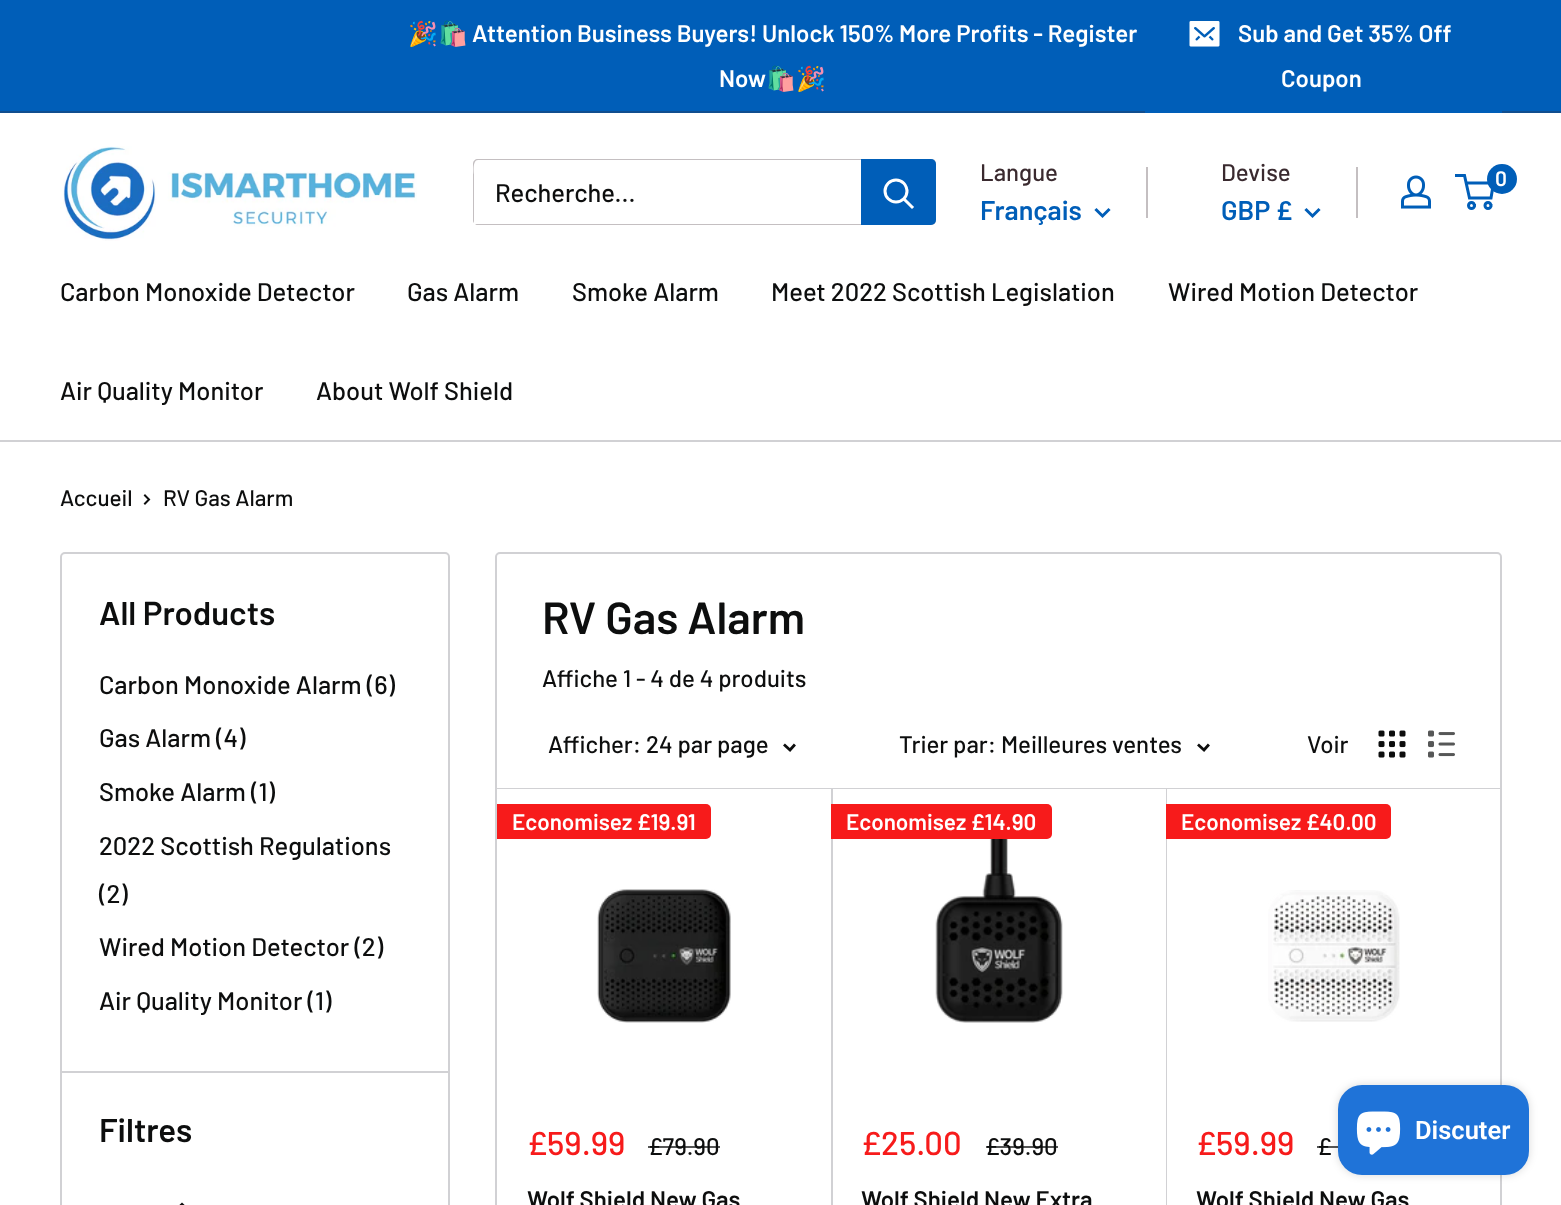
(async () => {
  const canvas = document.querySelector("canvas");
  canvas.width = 1561;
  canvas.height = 1205;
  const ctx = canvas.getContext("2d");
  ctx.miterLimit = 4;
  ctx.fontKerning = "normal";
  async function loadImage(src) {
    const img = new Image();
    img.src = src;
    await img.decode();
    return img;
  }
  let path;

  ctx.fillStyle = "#ffffff";
  ctx.fillRect(0, 0, 1561, 1205);
  ctx.fillStyle = "#005eb8";
  ctx.fillRect(0, 0, 1561, 111);
  ctx.fillStyle = "#114e8f";
  ctx.fillRect(0, 111, 1561, 2);
  ctx.fillStyle = "#005eb8";
  path = new Path2D("M1145 111V113H1502V2V111Z");
  ctx.fill(path);
  ctx.drawImage(await loadImage("img/1.png"), 1189, 21, 31, 26);
  ctx.drawImage(await loadImage("img/2.png"), 60, 146, 357, 95);
  ctx.fillStyle = "#c4bfc1";
  path = new Path2D("M475 224C476 225 477 225 478 225H931C934 225 936 223 936 220V164C936 162 935 160 933 159C934 160 934 161 934 162V219C934 221 932 224 930 224Z");
  ctx.fill(path);
  path = new Path2D("M478 160H933H935C934 160 932 159 931 159H478C475 159 473 161 473 164V220C473 221 473 222 474 223V174C474 174 472 160 478 160Z");
  ctx.fill(path);
  ctx.fillStyle = "#005eb8";
  ctx.beginPath();
  ctx.roundRect(861, 159, 75, 66, [0, 5, 5, 0]);
  ctx.fill();
  path = new Path2D("M912 207L904.5 199.5");
  ctx.strokeStyle = "#ffffff";
  ctx.lineWidth = 3;
  ctx.lineCap = "square";
  ctx.stroke(path);
  ctx.beginPath();
  ctx.arc(896, 191, 11, 0, Math.PI * 2);
  ctx.stroke();
  path = new Path2D("M1108.5 210L1102.5 216L1096.5 210");
  ctx.strokeStyle = "#005eb8";
  ctx.stroke(path);
  ctx.fillStyle = "#c4bfc1";
  ctx.fillRect(1146, 167, 2, 51);
  path = new Path2D("M1318.5 210L1312.5 216L1306.5 210");
  ctx.stroke(path);
  ctx.fillRect(1356, 167, 2, 51);
  ctx.drawImage(await loadImage("img/3.png"), 1401, 175, 30, 34);
  ctx.beginPath();
  ctx.arc(1471.5, 205.5, 3, 0, Math.PI * 2);
  ctx.stroke();
  ctx.beginPath();
  ctx.arc(1488, 205.5, 3, 0, Math.PI * 2);
  ctx.stroke();
  path = new Path2D("M1466 183H1493.5L1491 198H1469.5L1464.5 175.5H1455");
  ctx.lineCap = "butt";
  ctx.stroke(path);
  ctx.fillStyle = "#005eb8";
  ctx.beginPath();
  ctx.arc(1502, 179, 15, 0, Math.PI * 2);
  ctx.fill();
  ctx.fillStyle = "#d1d1d4";
  ctx.fillRect(0, 440, 1561, 2);
  path = new Path2D("M145 495.5L149 499.5L145 503.5");
  ctx.strokeStyle = "#0d0e0e";
  ctx.lineWidth = 2;
  ctx.lineCap = "square";
  ctx.stroke(path);
  ctx.beginPath();
  ctx.roundRect(61, 553, 388, 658, 4);
  ctx.strokeStyle = "#d1d1d4";
  ctx.stroke();
  ctx.fillRect(62, 1071, 387, 2);
  path = new Path2D("M176 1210.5L182 1204.5L188 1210.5");
  ctx.strokeStyle = "#0d0e0e";
  ctx.lineWidth = 3;
  ctx.stroke(path);
  ctx.beginPath();
  ctx.roundRect(496, 553, 1005, 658, 4);
  ctx.strokeStyle = "#d1d1d4";
  ctx.lineWidth = 2;
  ctx.stroke();
  path = new Path2D("M498 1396V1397H833V788H831V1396Z");
  ctx.fill(path);
  path = new Path2D("M833 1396V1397H1167V788H1166V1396Z");
  ctx.fill(path);
  ctx.fillRect(497, 788, 1003, 1);
  path = new Path2D("M794 745.5L790 750L785 745.5");
  ctx.strokeStyle = "#0d0e0e";
  ctx.lineWidth = 2.8;
  ctx.stroke(path);
  path = new Path2D("M1208 745.5L1204 750L1199 745.5");
  ctx.stroke(path);
  ctx.drawImage(await loadImage("img/4.png"), 1378, 730, 28, 28);
  ctx.drawImage(await loadImage("img/5.png"), 1428, 730, 27, 28);
  ctx.fillStyle = "#f71b1b";
  ctx.beginPath();
  ctx.roundRect(497, 804, 214, 35, [0, 5, 5, 0]);
  ctx.fill();
  ctx.drawImage(await loadImage("img/6.png"), 597, 889, 134, 134);
  ctx.beginPath();
  ctx.roundRect(831, 804, 221, 35, [0, 5, 5, 0]);
  ctx.fill();
  ctx.drawImage(await loadImage("img/7.png"), 935, 839, 128, 184);
  ctx.beginPath();
  ctx.roundRect(1166, 804, 225, 35, [0, 5, 5, 0]);
  ctx.fill();
  ctx.drawImage(await loadImage("img/8.png"), 1268, 890, 132, 132);
  ctx.font = "bold 24px Noto Color Emoji";
  ctx.fillStyle = "#ffffff";
  ctx.fillText("🎉🛍️", 408, 42);
  ctx.font = "600 24px Barlow";
  ctx.fillText("Attention Business Buyers! Unlock 150% More Profits - Register", 472, 42);
  ctx.fillText("Now", 719, 87);
  ctx.font = "bold 24px Noto Color Emoji";
  ctx.fillText("🛍️🎉", 766, 87);
  ctx.font = "600 24px Barlow";
  ctx.fillText("Sub and Get 35% Off", 1238, 42);
  ctx.fillText("Coupon", 1281, 87);
  ctx.font = "500 25.5px Barlow";
  ctx.fillStyle = "#0d0e0e";
  ctx.fillText("Recherche...", 495, 202);
  ctx.font = "500 24px Barlow";
  ctx.fillStyle = "#3a2a2f";
  ctx.fillText("Langue", 980, 181);
  ctx.font = "600 27px Barlow";
  ctx.fillStyle = "#005eb8";
  ctx.fillText("Français", 980, 220);
  ctx.font = "500 24px Barlow";
  ctx.fillStyle = "#3a2a2f";
  ctx.fillText("Devise", 1221, 181);
  ctx.font = "600 27px Barlow";
  ctx.fillStyle = "#005eb8";
  ctx.fillText("GBP £", 1221, 220);
  ctx.font = "600 21px Barlow";
  ctx.fillStyle = "#ffffff";
  ctx.fillText("0", 1495, 186);
  ctx.font = "500 25.5px Barlow";
  ctx.fillStyle = "#0d0e0e";
  for (const [text, x, y] of [
    ["Carbon Monoxide Detector", 60, 301],
    ["Gas Alarm", 407, 301],
    ["Smoke Alarm", 572, 301],
    ["Meet 2022 Scottish Legislation", 771, 301],
    ["Wired Motion Detector", 1168, 301],
    ["Air Quality Monitor", 60, 400],
    ["About Wolf Shield", 316, 400],
  ]) {
    ctx.fillText(text, x, y);
  }
  ctx.font = "500 22.5px Barlow";
  ctx.fillText("Accueil", 60, 506);
  ctx.fillText("RV Gas Alarm", 163, 506);
  ctx.font = "600 33px Barlow";
  ctx.fillText("All Products", 99, 625);
  ctx.font = "500 25.5px Barlow";
  for (const [text, x, y] of [
    ["Carbon Monoxide Alarm (6)", 99, 694],
    ["Gas Alarm (4)", 99, 747],
    ["Smoke Alarm (1)", 99, 801],
    ["2022 Scottish Regulations", 99, 855],
    ["(2)", 99, 903],
    ["Wired Motion Detector (2)", 99, 956],
    ["Air Quality Monitor (1)", 99, 1010],
  ]) {
    ctx.fillText(text, x, y);
  }
  ctx.font = "600 33px Barlow";
  ctx.fillText("Filtres", 99, 1142);
  ctx.font = "600 45px Barlow";
  ctx.fillText("RV Gas Alarm", 542, 634);
  ctx.font = "500 24px Barlow";
  for (const [text, x, y] of [
    ["Affiche 1 - 4 de 4 produits", 542, 687],
    ["Afficher: 24 par page", 548, 753],
    ["Trier par: Meilleures ventes", 899, 753],
    ["Voir", 1307, 753],
  ]) {
    ctx.fillText(text, x, y);
  }
  ctx.font = "600 22.5px Barlow";
  ctx.fillStyle = "#ffffff";
  ctx.fillText("Economisez £19.91", 512, 830);
  ctx.font = "500 33px Barlow";
  ctx.fillStyle = "#f71b1b";
  ctx.fillText("£59.99", 527, 1155);
  ctx.font = "500 24px Barlow";
  ctx.fillStyle = "#0d0e0e";
  ctx.fillText("£79.90", 648, 1155);
  ctx.fillStyle = "rgba(13, 14, 14, 0.7)";
  ctx.fillRect(648, 1146, 72, 2);
  ctx.font = "600 24px Barlow";
  ctx.fillStyle = "#0d0e0e";
  ctx.fillText("Wolf Shield New Gas", 527, 1208);
  ctx.font = "600 22.5px Barlow";
  ctx.fillStyle = "#ffffff";
  ctx.fillText("Economisez £14.90", 846, 830);
  ctx.font = "500 33px Barlow";
  ctx.fillStyle = "#f71b1b";
  ctx.fillText("£25.00", 861, 1155);
  ctx.font = "500 24px Barlow";
  ctx.fillStyle = "#0d0e0e";
  ctx.fillText("£39.90", 985, 1155);
  ctx.fillStyle = "rgba(13, 14, 14, 0.7)";
  ctx.fillRect(986, 1146, 72, 2);
  ctx.font = "600 24px Barlow";
  ctx.fillStyle = "#0d0e0e";
  ctx.fillText("Wolf Shield New Extra", 861, 1208);
  ctx.font = "600 22.5px Barlow";
  ctx.fillStyle = "#ffffff";
  ctx.fillText("Economisez £40.00", 1181, 830);
  ctx.font = "500 33px Barlow";
  ctx.fillStyle = "#f71b1b";
  ctx.fillText("£59.99", 1196, 1155);
  ctx.font = "500 24px Barlow";
  ctx.fillStyle = "#0d0e0e";
  ctx.fillText("£", 1317, 1155);
  ctx.fillStyle = "rgba(13, 14, 14, 0.7)";
  ctx.fillRect(1317, 1146, 21, 2);
  ctx.font = "600 24px Barlow";
  ctx.fillStyle = "#0d0e0e";
  ctx.fillText("Wolf Shield New Gas", 1196, 1208);
  ctx.fillStyle = "rgba(0, 0, 0, 0.15)";
  ctx.filter = "blur(4px)";
  ctx.beginPath();
  ctx.roundRect(1338, 1085, 191, 90, 24);
  ctx.fill();
  ctx.filter = "none";
  ctx.fillStyle = "#1f73d8";
  ctx.beginPath();
  ctx.roundRect(1338, 1085, 191, 90, 24);
  ctx.fill();
  ctx.drawImage(await loadImage("img/9.png"), 1356, 1111, 45, 44);
  ctx.font = "600 25.5px Roboto";
  ctx.fillStyle = "#ffffff";
  ctx.fillText("Discuter", 1415, 1139);
})();
